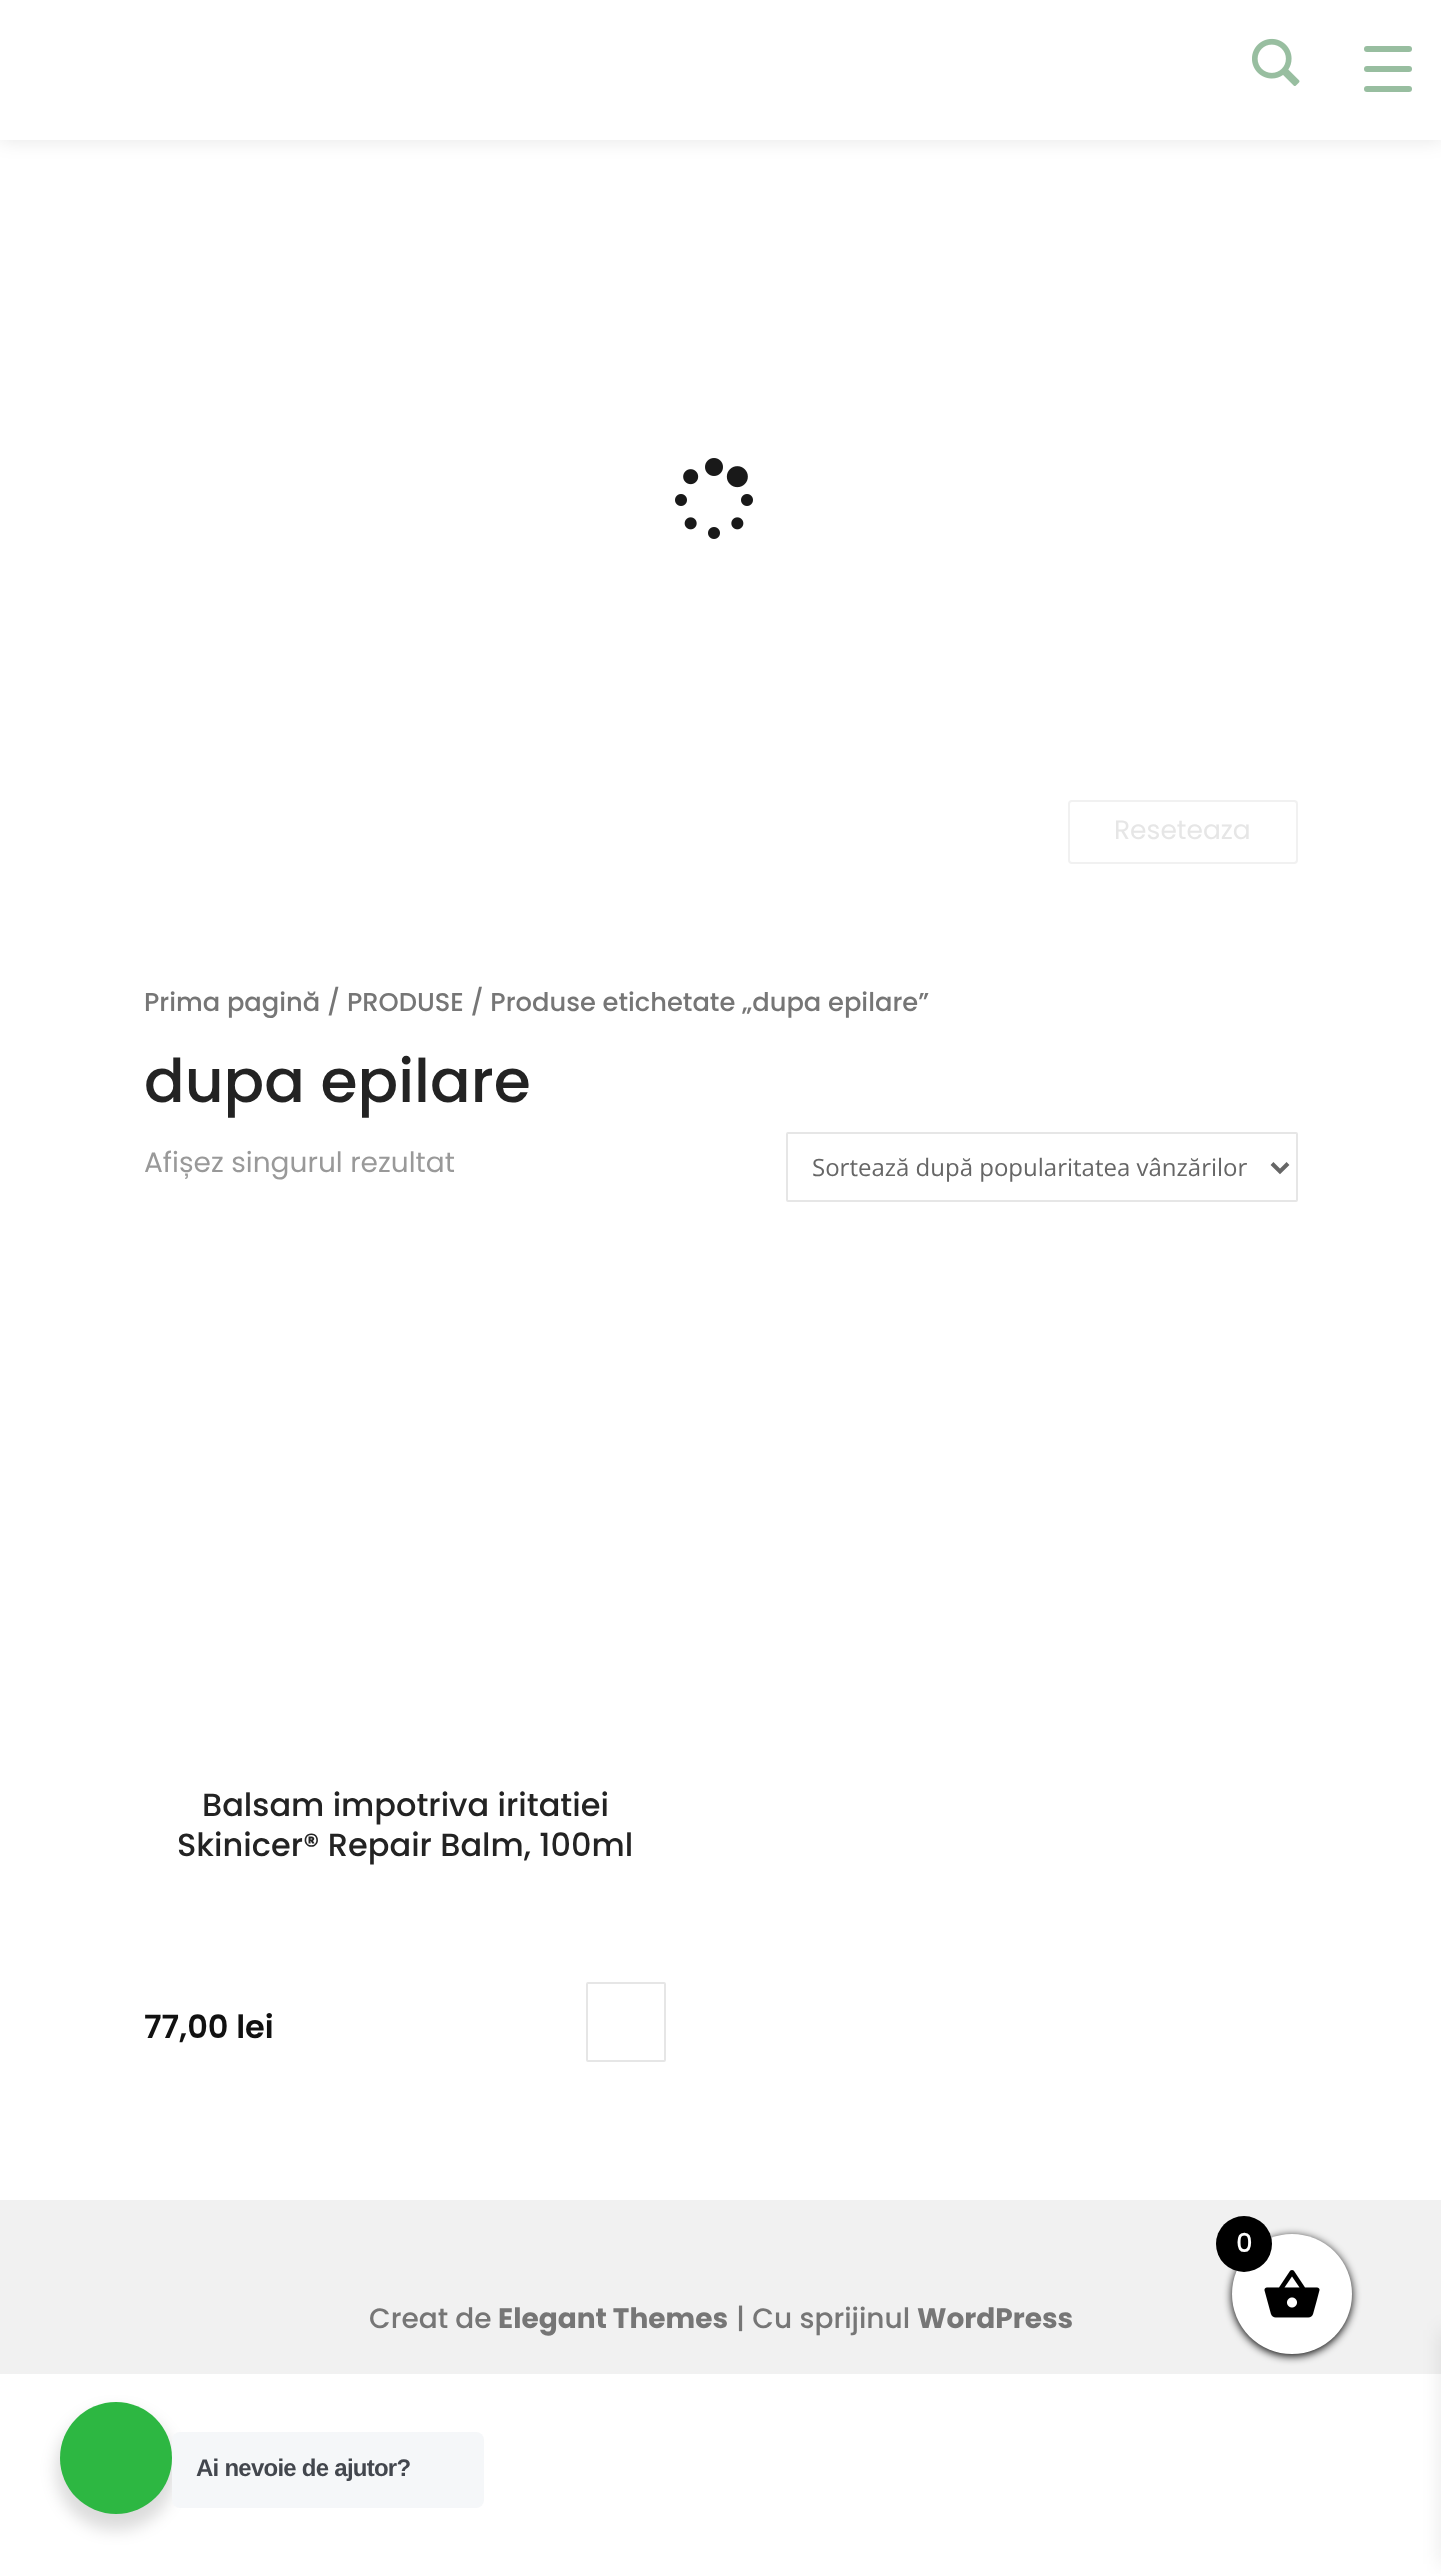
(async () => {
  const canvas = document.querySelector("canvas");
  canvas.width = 1441;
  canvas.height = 2574;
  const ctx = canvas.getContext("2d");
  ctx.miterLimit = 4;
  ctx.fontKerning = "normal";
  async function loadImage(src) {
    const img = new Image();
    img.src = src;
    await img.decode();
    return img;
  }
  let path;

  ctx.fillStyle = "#ffffff";
  ctx.fillRect(0, 0, 1441, 2574);
  ctx.fillStyle = "rgba(0, 0, 0, 0.1)";
  ctx.filter = "blur(10px)";
  ctx.beginPath();
  ctx.rect(0, 0, 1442, 140);
  ctx.fill();
  ctx.filter = "none";
  ctx.fillStyle = "#ffffff";
  ctx.fillRect(0, 0, 1441, 140);
  ctx.drawImage(await loadImage("img/1.png"), 1252, 38, 48, 48);
  ctx.fillStyle = "#98bea0";
  ctx.beginPath();
  ctx.roundRect(1364, 66, 48, 6, 3);
  ctx.fill();
  ctx.beginPath();
  ctx.roundRect(1364, 46, 48, 6, 3);
  ctx.fill();
  ctx.beginPath();
  ctx.roundRect(1364, 86, 48, 6, 3);
  ctx.fill();
  ctx.drawImage(await loadImage("img/2.png"), 675, 458, 78, 81);
  ctx.beginPath();
  ctx.roundRect(1069, 801, 228, 62, 3);
  ctx.strokeStyle = "#f1f1f1";
  ctx.lineWidth = 2;
  ctx.stroke();
  ctx.beginPath();
  ctx.roundRect(787, 1133, 510, 68, 1);
  ctx.strokeStyle = "#e6e6e6";
  ctx.stroke();
  path = new Path2D("M1272 1163.5L1280 1171.5L1288 1163.5");
  ctx.strokeStyle = "#666666";
  ctx.lineWidth = 4;
  ctx.stroke(path);
  ctx.beginPath();
  ctx.roundRect(587, 1983, 78, 78, 1);
  ctx.strokeStyle = "#e6e6e6";
  ctx.lineWidth = 2;
  ctx.stroke();
  ctx.fillStyle = "#f1f1f1";
  ctx.fillRect(0, 2200, 1441, 174);
  ctx.fillStyle = "#000000";
  ctx.filter = "blur(4px)";
  ctx.beginPath();
  ctx.roundRect(1232, 2236, 120, 120, 60);
  ctx.fill();
  ctx.filter = "none";
  ctx.fillStyle = "#ffffff";
  ctx.beginPath();
  ctx.arc(1292, 2294, 60, 0, Math.PI * 2);
  ctx.fill();
  ctx.drawImage(await loadImage("img/3.png"), 1264, 2270, 56, 48);
  ctx.fillStyle = "#000000";
  ctx.beginPath();
  ctx.arc(1244, 2244, 28, 0, Math.PI * 2);
  ctx.fill();
  ctx.fillStyle = "rgba(0, 0, 0, 0.1)";
  ctx.filter = "blur(10px)";
  ctx.beginPath();
  ctx.rect(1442, 2330, 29, 234);
  ctx.fill();
  ctx.filter = "none";
  ctx.fillStyle = "rgba(0, 0, 0, 0.14)";
  ctx.filter = "blur(8px)";
  ctx.beginPath();
  ctx.roundRect(56, 2410, 120, 120, 60);
  ctx.fill();
  ctx.filter = "none";
  ctx.fillStyle = "#2db742";
  ctx.beginPath();
  ctx.arc(116, 2458, 56, 0, Math.PI * 2);
  ctx.fill();
  ctx.fillStyle = "#f5f7f9";
  ctx.beginPath();
  ctx.roundRect(172, 2432, 312, 76, 8);
  ctx.fill();
  ctx.font = "26.5px Poppins";
  ctx.fillStyle = "#e6e6e6";
  ctx.fillText("Reseteaza", 1114, 839);
  ctx.font = "500 25.75px Poppins";
  ctx.fillStyle = "#767676";
  ctx.fillText("Prima pagină / PRODUSE / Produse etichetate „dupa epilare”", 144, 1011);
  ctx.font = "500 60px Poppins";
  ctx.fillStyle = "#232323";
  ctx.fillText("dupa epilare", 144, 1102);
  ctx.font = "28px Poppins";
  ctx.fillStyle = "#999999";
  ctx.fillText("Afișez singurul rezultat", 144, 1172);
  ctx.font = "24px Open Sans";
  ctx.fillStyle = "#666666";
  ctx.fillText("Sortează după popularitatea vânzărilor", 812, 1176);
  ctx.font = "500 32px Poppins";
  ctx.fillStyle = "#232323";
  ctx.fillText("Balsam impotriva iritatiei", 202, 1816);
  ctx.fillText("Skinicer® Repair Balm, 100ml", 177, 1856);
  ctx.font = "600 32px Poppins";
  ctx.fillStyle = "#111111";
  ctx.fillText("77,00 lei", 144, 2038);
  ctx.font = "500 28px Poppins";
  ctx.fillStyle = "#767676";
  ctx.fillText("Creat de", 369, 2328);
  ctx.font = "bold 28px Poppins";
  ctx.fillText("Elegant Themes", 498, 2328);
  ctx.font = "500 28px Poppins";
  ctx.fillText("| Cu sprijinul", 736, 2328);
  ctx.font = "bold 28px Poppins";
  ctx.fillText("WordPress", 917, 2328);
  ctx.font = "500 26px Poppins";
  ctx.fillStyle = "#ffffff";
  ctx.fillText("0", 1236, 2252);
  ctx.letterSpacing = "-0.75px";
  ctx.font = "bold 24px Liberation Sans";
  ctx.fillStyle = "#43474e";
  ctx.fillText("Ai nevoie de ajutor?", 196, 2476);
})();
